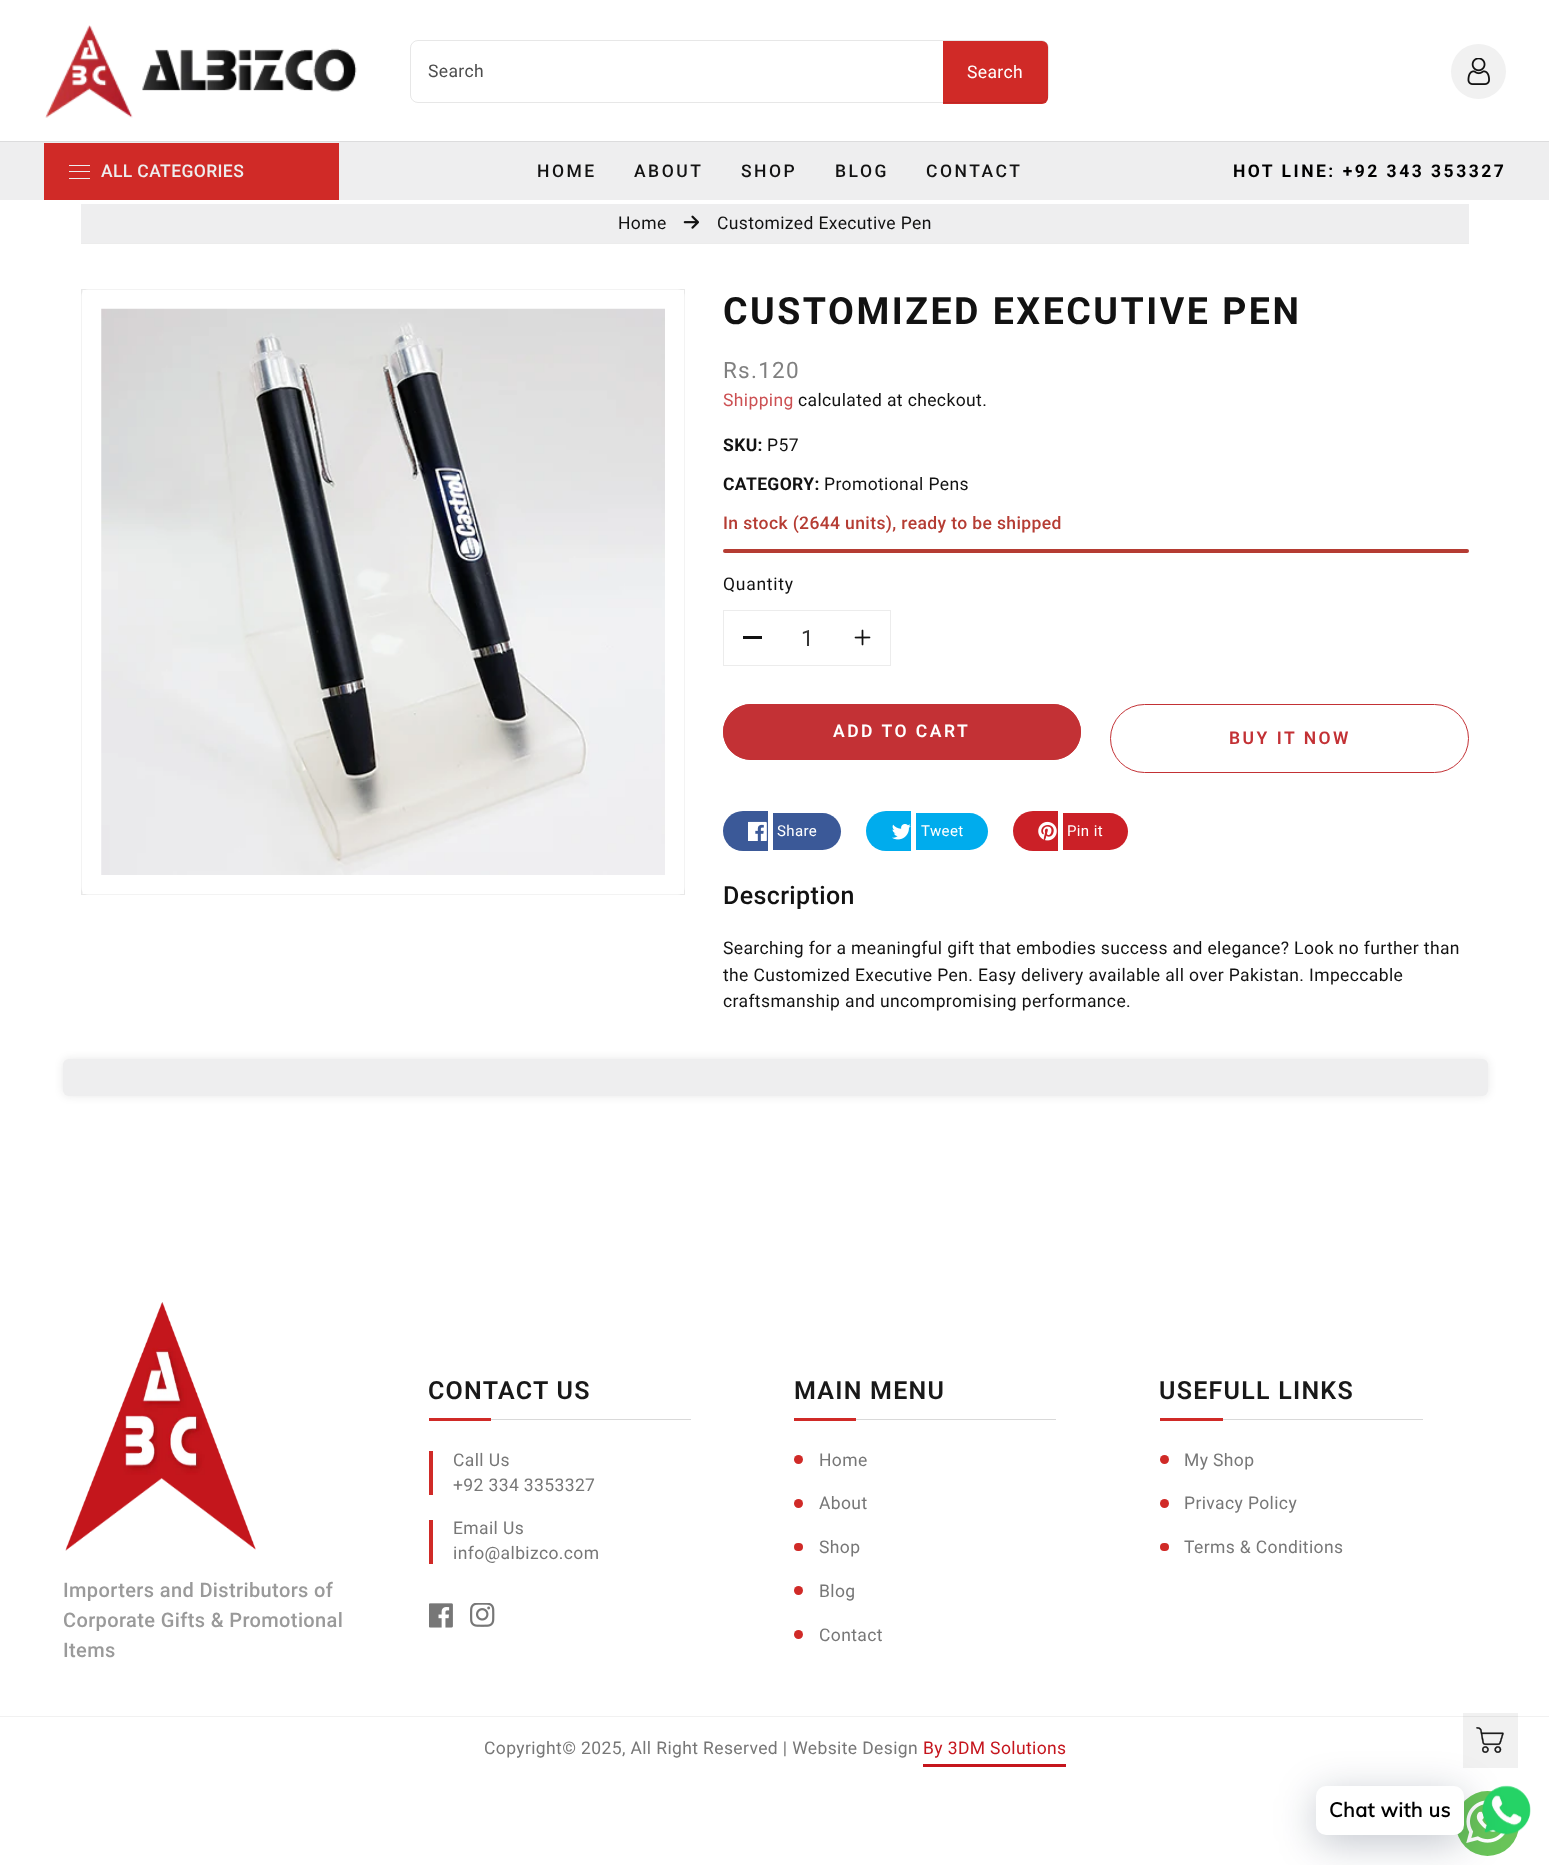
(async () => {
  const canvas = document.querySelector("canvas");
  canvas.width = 1549;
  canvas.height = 1865;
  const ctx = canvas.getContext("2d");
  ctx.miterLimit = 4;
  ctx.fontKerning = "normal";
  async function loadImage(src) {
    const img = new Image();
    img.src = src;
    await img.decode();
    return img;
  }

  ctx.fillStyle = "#ffffff";
  ctx.fillRect(0, 0, 1549, 1865);
  ctx.drawImage(await loadImage("img/1.png"), 45, 25, 312, 93);
  ctx.fillStyle = "#d02a27";
  ctx.beginPath();
  ctx.roundRect(943, 41, 105, 63, [0, 6, 6, 0]);
  ctx.fill();
  ctx.beginPath();
  ctx.roundRect(410.5, 40.5, 638, 62, 7.5);
  ctx.strokeStyle = "rgba(18, 18, 18, 0.1)";
  ctx.stroke();
  ctx.fillStyle = "#f1f1f1";
  ctx.beginPath();
  ctx.arc(1478.5, 71.5, 27.5, 0, Math.PI * 2);
  ctx.fill();
  ctx.drawImage(await loadImage("img/2.png"), 1467, 58, 23, 27);
  ctx.fillRect(0, 1716, 1549, 1);
  ctx.fillStyle = "rgba(18, 18, 18, 0.06)";
  ctx.fillRect(1463, 1713, 55, 55);
  ctx.drawImage(await loadImage("img/3.png"), 1476, 1727, 28, 26);
  for (const [x, y, w, h, color] of [
    [0, 142, 1549, 58, "#eeeeef"],
    [0, 141, 1549, 1, "#dcdcdd"],
    [44, 143, 295, 57, "#d02a27"],
    [69, 165, 21, 1, "#eeeeef"],
    [69, 171, 21, 1, "#eeeeef"],
    [69, 178, 21, 1, "#eeeeef"],
    [81, 204, 1388, 39, "#eeeeef"],
    [81, 243, 1388, 1, "#ececec"],
  ]) {
    ctx.fillStyle = color;
    ctx.fillRect(x, y, w, h);
  }
  ctx.drawImage(await loadImage("img/4.png"), 683, 215, 16, 14);
  ctx.fillStyle = "#f4f4f4";
  ctx.fillRect(81, 289, 604, 606);
  ctx.fillStyle = "#ffffff";
  ctx.beginPath();
  ctx.roundRect(81, 289, 604, 606, 8);
  ctx.fill();
  ctx.strokeStyle = "rgba(18, 18, 18, 0.05)";
  ctx.strokeRect(81.5, 289.5, 603, 605);
  ctx.fillRect(83, 290, 601, 604);
  ctx.drawImage(await loadImage("img/5.png"), 101, 308, 564, 567);
  ctx.fillStyle = "#b53c33";
  ctx.beginPath();
  ctx.roundRect(723, 549, 746, 4, 2);
  ctx.fill();
  ctx.strokeStyle = "#ececec";
  ctx.strokeRect(723.5, 610.5, 167, 55);
  ctx.fillStyle = "#121212";
  ctx.fillRect(743, 636, 19, 3);
  ctx.drawImage(await loadImage("img/6.png"), 854, 629, 17, 17);
  ctx.fillStyle = "#c33135";
  ctx.beginPath();
  ctx.roundRect(723, 704, 358, 56, 28);
  ctx.fill();
  ctx.beginPath();
  ctx.roundRect(723.5, 704.5, 357, 55, 27.5);
  ctx.strokeStyle = "#c33135";
  ctx.stroke();
  ctx.beginPath();
  ctx.roundRect(1110.5, 704.5, 358, 68, 34);
  ctx.stroke();
  ctx.fillStyle = "#3b5998";
  ctx.beginPath();
  ctx.roundRect(723, 811, 45, 40, [20, 0, 0, 20]);
  ctx.fill();
  ctx.drawImage(await loadImage("img/7.png"), 748, 821, 19, 20);
  ctx.fillRect(773, 813, 3, 37);
  ctx.beginPath();
  ctx.roundRect(776, 813, 65, 37, [0, 18.5, 18.5, 0]);
  ctx.fill();
  ctx.fillStyle = "#00aced";
  ctx.beginPath();
  ctx.roundRect(866, 811, 45, 40, [20, 0, 0, 20]);
  ctx.fill();
  ctx.drawImage(await loadImage("img/8.png"), 892, 824, 19, 16);
  ctx.fillRect(916, 813, 4, 37);
  ctx.beginPath();
  ctx.roundRect(920, 813, 68, 37, [0, 18.5, 18.5, 0]);
  ctx.fill();
  ctx.fillStyle = "#cb2027";
  ctx.beginPath();
  ctx.roundRect(1013, 811, 45, 40, [20, 0, 0, 20]);
  ctx.fill();
  ctx.drawImage(await loadImage("img/9.png"), 1038, 821, 19, 20);
  ctx.fillRect(1063, 813, 5, 37);
  ctx.beginPath();
  ctx.roundRect(1068, 813, 60, 37, [0, 18.5, 18.5, 0]);
  ctx.fill();
  ctx.fillStyle = "rgba(18, 18, 18, 0.1)";
  ctx.filter = "blur(4px)";
  ctx.beginPath();
  ctx.roundRect(63, 1059, 1425, 37, 6);
  ctx.fill();
  ctx.filter = "none";
  ctx.fillStyle = "#eeeeef";
  ctx.beginPath();
  ctx.roundRect(63, 1059, 1425, 37, 6);
  ctx.fill();
  ctx.drawImage(await loadImage("img/10.png"), 65, 1302, 191, 249);
  ctx.fillStyle = "#69c459";
  ctx.beginPath();
  ctx.roundRect(1456, 1791, 63, 65, 31.5);
  ctx.fill();
  ctx.drawImage(await loadImage("img/11.png"), 1466, 1800, 40, 43);
  for (const [x, y, w, h, color] of [
    [491, 1419, 200, 1, "#d9d9d9"],
    [429, 1418, 62, 3, "#d02a27"],
    [429, 1451, 4, 44, "#d02a27"],
    [429, 1520, 4, 44, "#d02a27"],
  ]) {
    ctx.fillStyle = color;
    ctx.fillRect(x, y, w, h);
  }
  ctx.drawImage(await loadImage("img/12.png"), 429, 1603, 24, 25);
  ctx.drawImage(await loadImage("img/13.png"), 470, 1603, 25, 24);
  ctx.fillStyle = "#d9d9d9";
  ctx.fillRect(856, 1419, 200, 1);
  ctx.fillStyle = "#d02a27";
  ctx.fillRect(794, 1418, 62, 3);
  ctx.beginPath();
  ctx.arc(798.5, 1459.5, 4.5, 0, Math.PI * 2);
  ctx.fill();
  ctx.beginPath();
  ctx.arc(798.5, 1503.5, 4.5, 0, Math.PI * 2);
  ctx.fill();
  ctx.beginPath();
  ctx.roundRect(794, 1543, 9, 8, 4);
  ctx.fill();
  ctx.beginPath();
  ctx.arc(798.5, 1590.5, 4.5, 0, Math.PI * 2);
  ctx.fill();
  ctx.beginPath();
  ctx.arc(798.5, 1634.5, 4.5, 0, Math.PI * 2);
  ctx.fill();
  ctx.fillStyle = "#d9d9d9";
  ctx.fillRect(1223, 1419, 200, 1);
  ctx.fillStyle = "#d02a27";
  ctx.fillRect(1160, 1418, 63, 3);
  ctx.beginPath();
  ctx.arc(1164.5, 1459.5, 4.5, 0, Math.PI * 2);
  ctx.fill();
  ctx.beginPath();
  ctx.arc(1164.5, 1503.5, 4.5, 0, Math.PI * 2);
  ctx.fill();
  ctx.beginPath();
  ctx.roundRect(1160, 1543, 9, 8, 4);
  ctx.fill();
  ctx.fillStyle = "#c5151d";
  ctx.fillRect(923, 1764, 143, 3);
  ctx.drawImage(await loadImage("img/14.png"), 1482, 1785, 49, 50);
  ctx.fillStyle = "rgba(0, 18, 46, 0.24)";
  ctx.filter = "blur(20px)";
  ctx.beginPath();
  ctx.roundRect(1316, 1794, 148, 49, 10);
  ctx.fill();
  ctx.filter = "none";
  ctx.fillStyle = "#ffffff";
  ctx.beginPath();
  ctx.roundRect(1316, 1786, 148, 49, 10);
  ctx.fill();
  ctx.letterSpacing = "0.38px";
  ctx.font = "17.5px Roboto";
  ctx.fillStyle = "#4d4d4d";
  ctx.fillText("Search", 428, 77);
  ctx.fillStyle = "#ffffff";
  ctx.fillText("Search", 967, 78);
  ctx.font = "500 17.5px Roboto";
  ctx.fillStyle = "#eeeeef";
  ctx.fillText("ALL CATEGORIES", 101, 177);
  ctx.letterSpacing = "2.5px";
  ctx.fillStyle = "#121212";
  for (const [text, x, y] of [
    ["HOME", 537, 177],
    ["ABOUT", 634, 177],
    ["SHOP", 741, 177],
    ["BLOG", 835, 177],
    ["CONTACT", 926, 177],
  ]) {
    ctx.fillText(text, x, y);
  }
  ctx.font = "bold 17.5px Roboto";
  ctx.fillStyle = "#000000";
  ctx.fillText("HOT LINE: +92 343 353327", 1233, 177);
  ctx.letterSpacing = "0.38px";
  ctx.font = "17.5px Roboto";
  ctx.fillStyle = "#121212";
  ctx.fillText("Home", 618, 229);
  ctx.fillText("Customized Executive Pen", 717, 229);
  ctx.letterSpacing = "2.5px";
  ctx.font = "bold 37.5px Roboto";
  ctx.fillText("CUSTOMIZED EXECUTIVE PEN", 723, 324);
  ctx.letterSpacing = "1.25px";
  ctx.font = "22.5px Roboto";
  ctx.fillStyle = "#808080";
  ctx.fillText("Rs.120", 723, 378);
  ctx.letterSpacing = "0.38px";
  ctx.font = "17.5px Roboto";
  ctx.fillStyle = "#cc5053";
  ctx.fillText("Shipping", 723, 406);
  ctx.fillStyle = "#121212";
  ctx.fillText("calculated at checkout.", 798, 406);
  ctx.font = "bold 17.5px Roboto";
  ctx.fillText("SKU:", 723, 451);
  ctx.font = "17.5px Roboto";
  ctx.fillText("P57", 767, 451);
  ctx.font = "bold 17.5px Roboto";
  ctx.fillText("CATEGORY:", 723, 490);
  ctx.font = "17.5px Roboto";
  ctx.fillText("Promotional Pens", 824, 490);
  ctx.font = "500 17.5px Roboto";
  ctx.fillStyle = "#b53c33";
  ctx.fillText("In stock (2644 units), ready to be shipped", 723, 529);
  ctx.letterSpacing = "0.75px";
  ctx.font = "17.5px Roboto";
  ctx.fillStyle = "#121212";
  ctx.fillText("Quantity", 723, 590);
  ctx.letterSpacing = "0px";
  ctx.font = "22.5px Roboto";
  ctx.fillStyle = "#363636";
  ctx.fillText("1", 801, 646);
  ctx.letterSpacing = "2.5px";
  ctx.font = "600 17.5px Roboto";
  ctx.fillStyle = "#ffffff";
  ctx.fillText("ADD TO CART", 833, 737);
  ctx.fillStyle = "#c33135";
  ctx.fillText("BUY IT NOW", 1229, 744);
  ctx.letterSpacing = "0.38px";
  ctx.font = "15px Roboto";
  ctx.fillStyle = "#ffffff";
  for (const [text, x, y] of [
    ["Share", 777, 836],
    ["Tweet", 921, 836],
    ["Pin it", 1067, 836],
  ]) {
    ctx.fillText(text, x, y);
  }
  ctx.font = "500 25px Roboto";
  ctx.fillStyle = "#121212";
  ctx.fillText("Description", 723, 904);
  ctx.font = "17.5px Roboto";
  for (const [text, x, y] of [
    ["Searching for a meaningful gift that embodies success and elegance? Look no further than", 723, 954],
    ["the Customized Executive Pen. Easy delivery available all over Pakistan. Impeccable", 723, 981],
    ["craftsmanship and uncompromising performance.", 723, 1007],
  ]) {
    ctx.fillText(text, x, y);
  }
  ctx.font = "500 20px Roboto";
  ctx.fillStyle = "#9a9a9a";
  for (const [text, x, y] of [
    ["Importers and Distributors of", 63, 1597],
    ["Corporate Gifts & Promotional", 63, 1627],
    ["Items", 63, 1657],
  ]) {
    ctx.fillText(text, x, y);
  }
  ctx.letterSpacing = "1.25px";
  ctx.font = "600 25px Roboto";
  ctx.fillStyle = "#191919";
  ctx.fillText("CONTACT US", 428, 1399);
  ctx.letterSpacing = "0.38px";
  ctx.font = "17.5px Roboto";
  ctx.fillStyle = "#777777";
  for (const [text, x, y] of [
    ["Call Us", 453, 1466],
    ["+92 334 3353327", 453, 1491],
    ["Email Us", 453, 1534],
    ["info@albizco.com", 453, 1559],
  ]) {
    ctx.fillText(text, x, y);
  }
  ctx.letterSpacing = "1.25px";
  ctx.font = "600 25px Roboto";
  ctx.fillStyle = "#191919";
  ctx.fillText("MAIN MENU", 794, 1399);
  ctx.letterSpacing = "0.38px";
  ctx.font = "17.5px Roboto";
  ctx.fillStyle = "#777777";
  for (const [text, x, y] of [
    ["Home", 819, 1466],
    ["About", 819, 1509],
    ["Shop", 819, 1553],
    ["Blog", 819, 1597],
    ["Contact", 819, 1641],
  ]) {
    ctx.fillText(text, x, y);
  }
  ctx.letterSpacing = "1.25px";
  ctx.font = "600 25px Roboto";
  ctx.fillStyle = "#191919";
  ctx.fillText("USEFULL LINKS", 1159, 1399);
  ctx.letterSpacing = "0.38px";
  ctx.font = "17.5px Roboto";
  ctx.fillStyle = "#777777";
  for (const [text, x, y] of [
    ["My Shop", 1184, 1466],
    ["Privacy Policy", 1184, 1509],
    ["Terms & Conditions", 1184, 1553],
    ["Copyright© 2025, All Right Reserved | Website Design", 484, 1754],
  ]) {
    ctx.fillText(text, x, y);
  }
  ctx.fillStyle = "#c5151d";
  ctx.fillText("By 3DM Solutions", 923, 1754);
  ctx.font = "bold 20px Muli";
  ctx.fillStyle = "#000000";
  ctx.fillText("Chat with us", 1329, 1817);
})();
